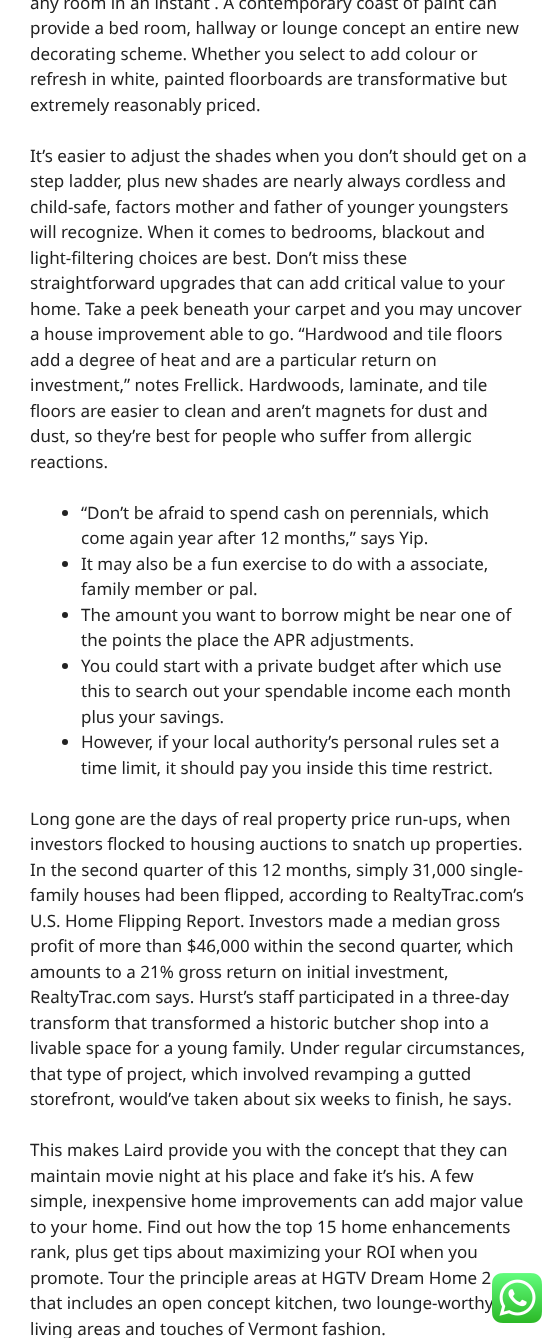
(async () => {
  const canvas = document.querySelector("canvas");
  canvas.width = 557;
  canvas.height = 1338;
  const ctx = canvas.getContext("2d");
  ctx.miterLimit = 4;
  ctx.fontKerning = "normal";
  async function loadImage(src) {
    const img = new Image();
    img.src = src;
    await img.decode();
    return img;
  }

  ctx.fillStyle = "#ffffff";
  ctx.fillRect(0, 0, 557, 1338);
  ctx.fillStyle = "#222222";
  ctx.beginPath();
  ctx.arc(65, 513, 3, 0, Math.PI * 2);
  ctx.fill();
  ctx.beginPath();
  ctx.arc(65, 564, 3, 0, Math.PI * 2);
  ctx.fill();
  ctx.beginPath();
  ctx.arc(65, 615, 3, 0, Math.PI * 2);
  ctx.fill();
  ctx.beginPath();
  ctx.arc(65, 666, 3, 0, Math.PI * 2);
  ctx.fill();
  ctx.beginPath();
  ctx.arc(65, 742, 3, 0, Math.PI * 2);
  ctx.fill();
  ctx.font = "17px Noto Sans";
  for (const [text, x, y] of [
    ["any room in an instant . A contemporary coast of paint can", 30, 9],
    ["provide a bed room, hallway or lounge concept an entire new", 30, 34],
    ["decorating scheme. Whether you select to add colour or", 30, 60],
    ["refresh in white, painted floorboards are transformative but", 30, 85],
    ["extremely reasonably priced.", 30, 111],
    ["It’s easier to adjust the shades when you don’t should get on a", 30, 162],
    ["step ladder, plus new shades are nearly always cordless and", 30, 187],
    ["child-safe, factors mother and father of younger youngsters", 30, 213],
    ["will recognize. When it comes to bedrooms, blackout and", 30, 238],
    ["light-filtering choices are best. Don’t miss these", 30, 264],
    ["straightforward upgrades that can add critical value to your", 30, 289],
    ["home. Take a peek beneath your carpet and you may uncover", 30, 315],
    ["a house improvement able to go. “Hardwood and tile floors", 30, 340],
    ["add a degree of heat and are a particular return on", 30, 366],
    ["investment,” notes Frellick. Hardwoods, laminate, and tile", 30, 391],
    ["floors are easier to clean and aren’t magnets for dust and", 30, 417],
    ["dust, so they’re best for people who suffer from allergic", 30, 442],
    ["reactions.", 30, 468],
    ["“Don’t be afraid to spend cash on perennials, which", 81, 519],
    ["come again year after 12 months,” says Yip.", 81, 544],
    ["It may also be a fun exercise to do with a associate,", 81, 570],
    ["family member or pal.", 81, 595],
    ["The amount you want to borrow might be near one of", 81, 621],
    ["the points the place the APR adjustments.", 81, 646],
    ["You could start with a private budget after which use", 81, 672],
    ["this to search out your spendable income each month", 81, 697],
    ["plus your savings.", 81, 723],
    ["However, if your local authority’s personal rules set a", 81, 748],
    ["time limit, it should pay you inside this time restrict.", 81, 774],
    ["Long gone are the days of real property price run-ups, when", 30, 825],
    ["investors flocked to housing auctions to snatch up properties.", 30, 850],
    ["In the second quarter of this 12 months, simply 31,000 single-", 30, 876],
    ["family houses had been flipped, according to RealtyTrac.com’s", 30, 901],
    ["U.S. Home Flipping Report. Investors made a median gross", 30, 927],
    ["profit of more than $46,000 within the second quarter, which", 30, 952],
    ["amounts to a 21% gross return on initial investment,", 30, 978],
    ["RealtyTrac.com says. Hurst’s staff participated in a three-day", 30, 1003],
    ["transform that transformed a historic butcher shop into a", 30, 1029],
    ["livable space for a young family. Under regular circumstances,", 30, 1054],
    ["that type of project, which involved revamping a gutted", 30, 1080],
    ["storefront, would’ve taken about six weeks to finish, he says.", 30, 1105],
    ["This makes Laird provide you with the concept that they can", 30, 1156],
    ["maintain movie night at his place and fake it’s his. A few", 30, 1182],
    ["simple, inexpensive home improvements can add major value", 30, 1207],
    ["to your home. Find out how the top 15 home enhancements", 30, 1233],
    ["rank, plus get tips about maximizing your ROI when you", 30, 1258],
    ["promote. Tour the principle areas at HGTV Dream Home 2", 30, 1284],
    ["that includes an open concept kitchen, two lounge-worthy", 30, 1309],
    ["living areas and touches of Vermont fashion.", 30, 1335],
  ]) {
    ctx.fillText(text, x, y);
  }
  ctx.drawImage(await loadImage("img/1.png"), 492, 1273, 50, 50);
})();
